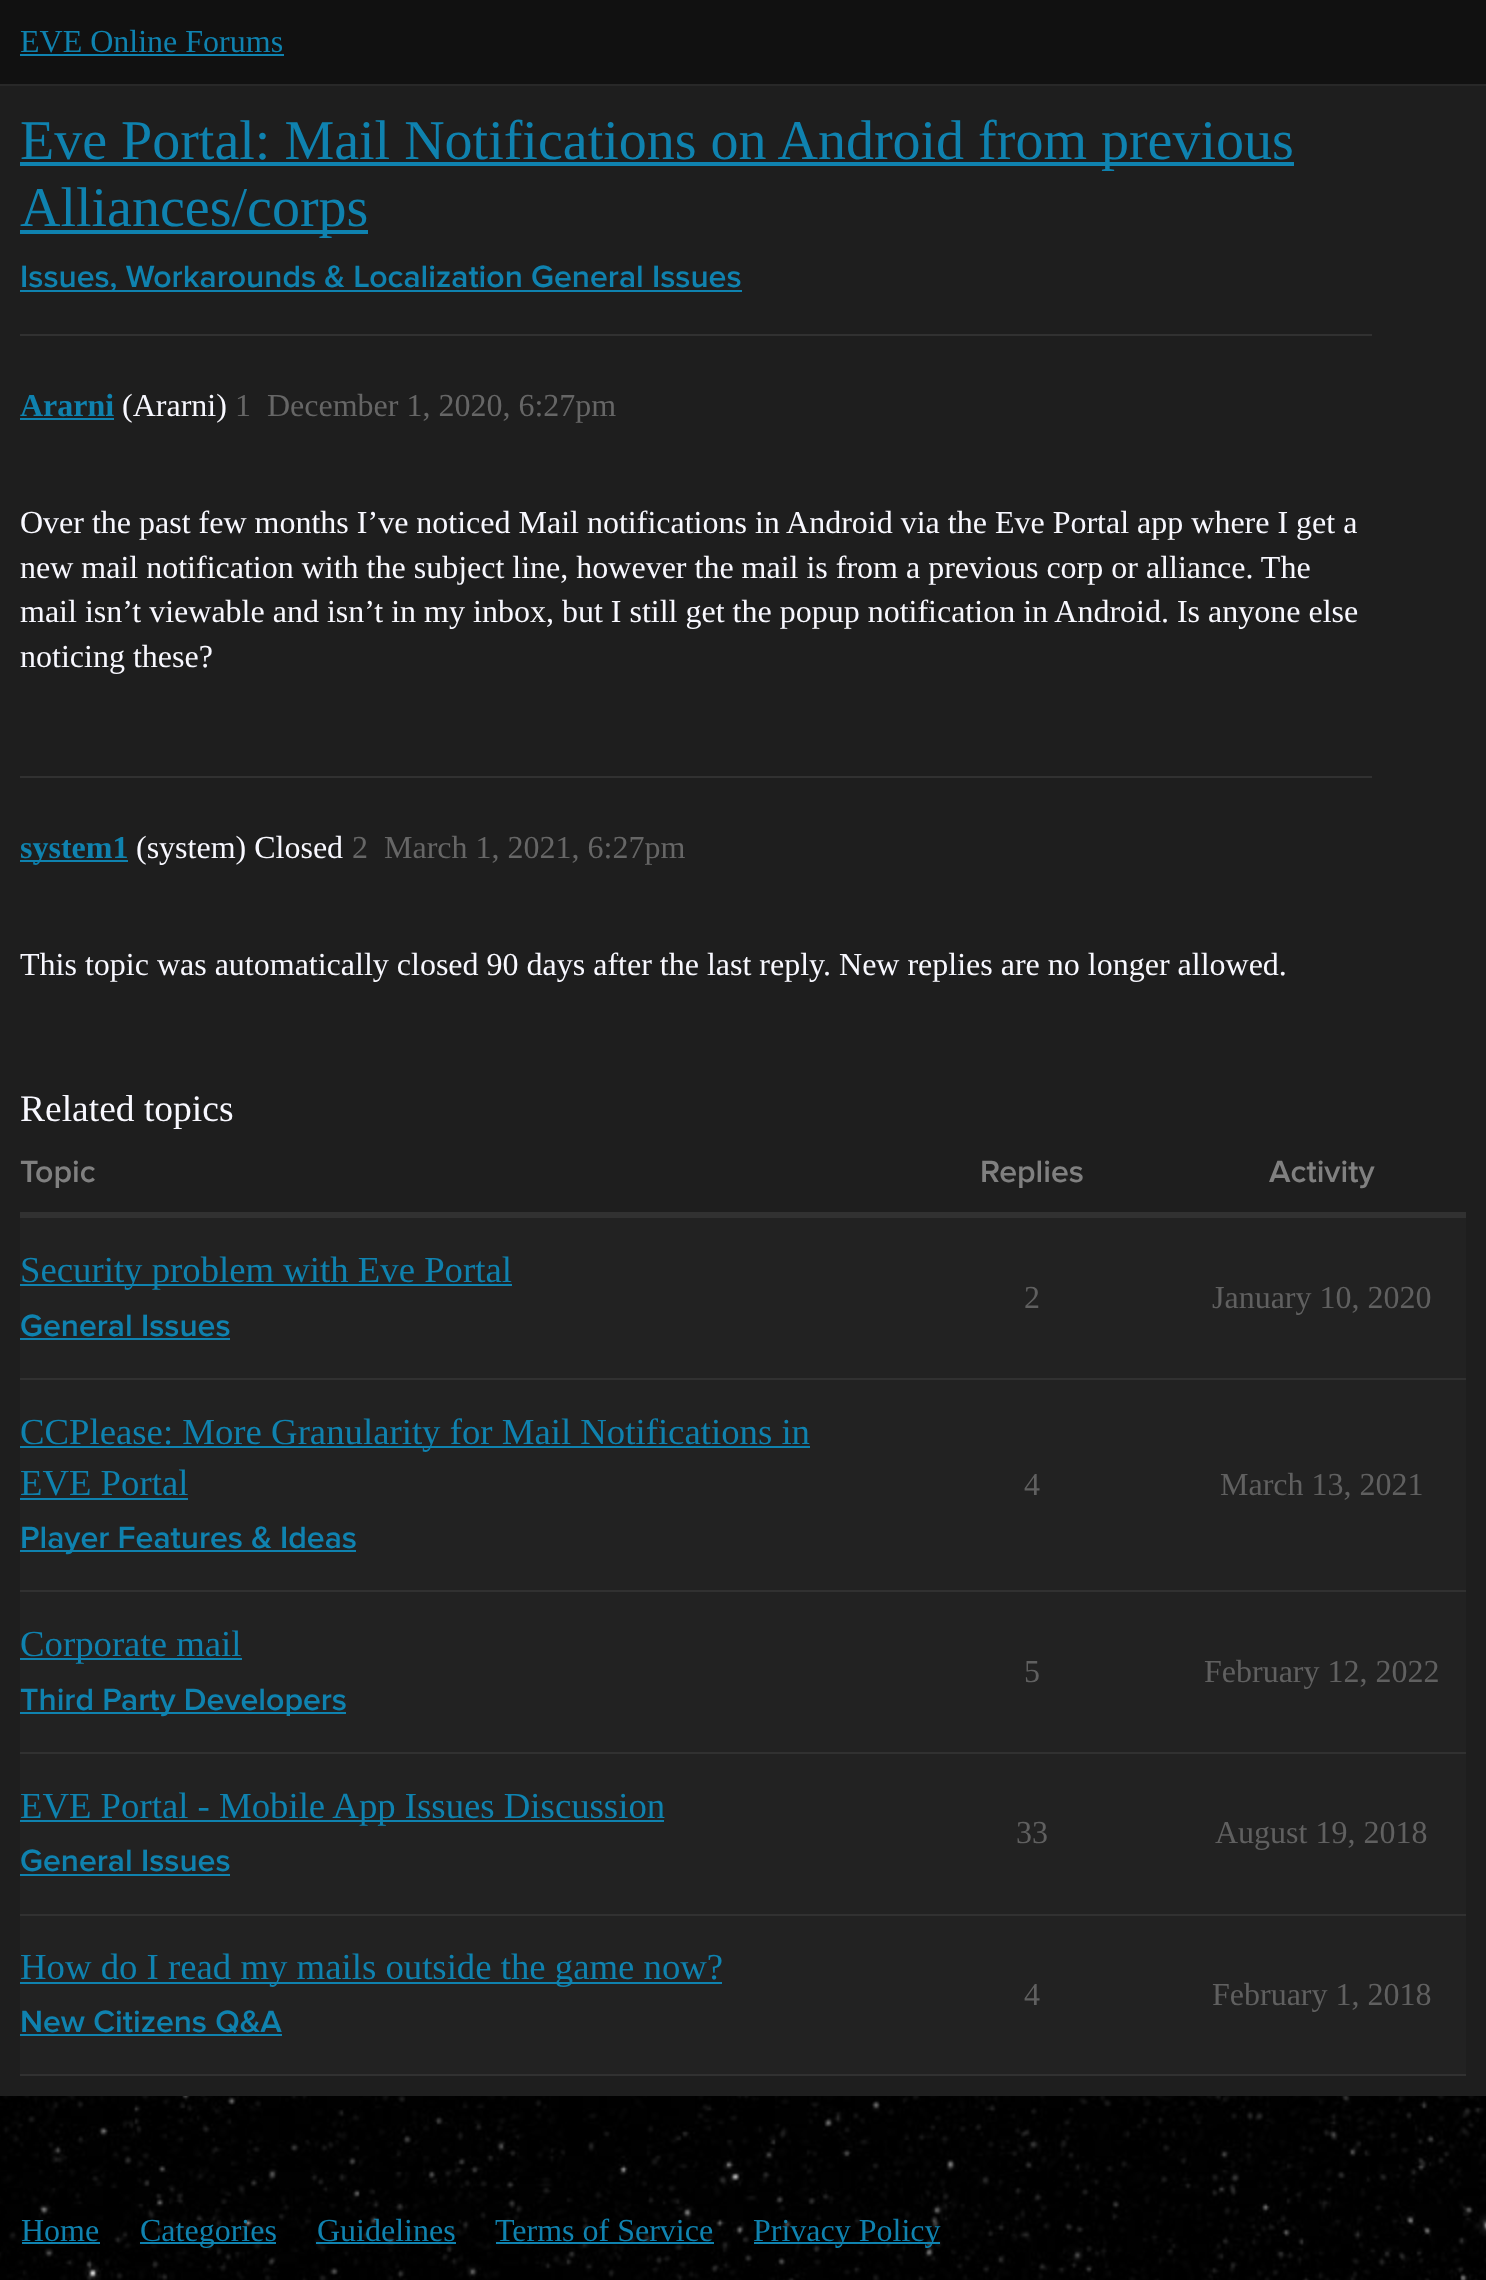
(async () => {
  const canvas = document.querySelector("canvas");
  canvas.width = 1486;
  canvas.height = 2280;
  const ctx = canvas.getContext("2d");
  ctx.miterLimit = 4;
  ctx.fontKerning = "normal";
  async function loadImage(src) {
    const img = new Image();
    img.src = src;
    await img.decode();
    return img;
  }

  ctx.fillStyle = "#ffffff";
  ctx.fillRect(0, 0, 1486, 2280);
  ctx.drawImage(await loadImage("img/1.png"), 0, 2096, 1486, 184);
  for (const [x, y, w, h, color] of [
    [0, 0, 1486, 84, "#111111"],
    [0, 84, 1486, 2, "#282828"],
    [20, 54, 264, 2, "#0f82af"],
    [0, 86, 1486, 2010, "#1e1e1e"],
    [20, 162, 1274, 4, "#0f82af"],
    [20, 230, 348, 4, "#0f82af"],
    [20, 290, 722, 2, "#0f82af"],
    [20, 334, 1352, 2, "#313131"],
    [20, 418, 94, 2, "#0f82af"],
    [20, 776, 1352, 2, "#313131"],
    [20, 860, 108, 2, "#0f82af"],
    [20, 1212, 1446, 6, "#313131"],
    [20, 1218, 1446, 160, "#222222"],
    [20, 1378, 1446, 2, "#313131"],
    [20, 1284, 492, 2, "#0f82af"],
    [20, 1338, 210, 2, "#0f82af"],
    [20, 1380, 1446, 210, "#222222"],
    [20, 1590, 1446, 2, "#313131"],
    [20, 1446, 790, 2, "#0f82af"],
    [20, 1498, 168, 2, "#0f82af"],
    [20, 1550, 336, 2, "#0f82af"],
    [20, 1592, 1446, 160, "#222222"],
    [20, 1752, 1446, 2, "#313131"],
    [20, 1658, 222, 2, "#0f82af"],
    [20, 1712, 326, 2, "#0f82af"],
    [20, 1754, 1446, 160, "#222222"],
    [20, 1914, 1446, 2, "#313131"],
    [20, 1820, 644, 2, "#0f82af"],
    [20, 1874, 210, 2, "#0f82af"],
    [20, 1916, 1446, 158, "#222222"],
    [20, 2074, 1446, 2, "#313131"],
    [20, 1982, 702, 2, "#0f82af"],
    [20, 2034, 262, 2, "#0f82af"],
    [22, 2242, 78, 2, "#0f82af"],
    [140, 2242, 136, 2, "#0f82af"],
    [316, 2242, 140, 2, "#0f82af"],
    [496, 2242, 218, 2, "#0f82af"],
    [754, 2242, 186, 2, "#0f82af"],
  ]) {
    ctx.fillStyle = color;
    ctx.fillRect(x, y, w, h);
  }
  ctx.font = "32px Liberation Serif";
  ctx.fillText("EVE Online Forums", 20, 52);
  ctx.font = "56px Liberation Serif";
  ctx.fillText("Eve Portal: Mail Notifications on Android from previous", 20, 159);
  ctx.fillText("Alliances/corps", 20, 226);
  ctx.font = "600 32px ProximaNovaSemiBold";
  ctx.fillText("Issues, Workarounds & Localization General Issues", 20, 287);
  ctx.font = "bold 32px Liberation Serif";
  ctx.fillText("Ararni", 20, 416);
  ctx.font = "32px Liberation Serif";
  ctx.fillStyle = "#f8f8ff";
  ctx.fillText("(Ararni)", 122, 416);
  ctx.fillStyle = "#666666";
  ctx.fillText("1", 235, 416);
  ctx.fillText("December 1, 2020, 6:27pm", 267, 416);
  ctx.fillStyle = "#f8f8ff";
  for (const [text, x, y] of [
    ["Over the past few months I’ve noticed Mail notifications in Android via the Eve Portal app where I get a", 20, 533],
    ["new mail notification with the subject line, however the mail is from a previous corp or alliance. The", 20, 578],
    ["mail isn’t viewable and isn’t in my inbox, but I still get the popup notification in Android. Is anyone else", 20, 622],
    ["noticing these?", 20, 667],
  ]) {
    ctx.fillText(text, x, y);
  }
  ctx.font = "bold 32px Liberation Serif";
  ctx.fillStyle = "#0f82af";
  ctx.fillText("system1", 20, 858);
  ctx.font = "32px Liberation Serif";
  ctx.fillStyle = "#f8f8ff";
  ctx.fillText("(system) Closed", 136, 858);
  ctx.fillStyle = "#666666";
  ctx.fillText("2", 352, 858);
  ctx.fillText("March 1, 2021, 6:27pm", 384, 858);
  ctx.fillStyle = "#f8f8ff";
  ctx.fillText("This topic was automatically closed 90 days after the last reply. New replies are no longer allowed.", 20, 975);
  ctx.font = "37.5px Liberation Serif";
  ctx.fillText("Related topics", 20, 1121);
  ctx.font = "600 32px ProximaNovaSemiBold";
  ctx.fillStyle = "#808080";
  for (const [text, x, y] of [
    ["Topic", 20, 1182],
    ["Replies", 980, 1182],
    ["Activity", 1269, 1182],
  ]) {
    ctx.fillText(text, x, y);
  }
  ctx.font = "36.75px Liberation Serif";
  ctx.fillStyle = "#0f82af";
  ctx.fillText("Security problem with Eve Portal", 20, 1282);
  ctx.font = "600 32px ProximaNovaSemiBold";
  ctx.fillText("General Issues", 20, 1336);
  ctx.font = "32px Liberation Serif";
  ctx.fillStyle = "#606060";
  ctx.fillText("2", 1024, 1308);
  ctx.fillText("January 10, 2020", 1212, 1308);
  ctx.font = "36.75px Liberation Serif";
  ctx.fillStyle = "#0f82af";
  ctx.fillText("CCPlease: More Granularity for Mail Notifications in", 20, 1444);
  ctx.fillText("EVE Portal", 20, 1495);
  ctx.font = "600 32px ProximaNovaSemiBold";
  ctx.fillText("Player Features & Ideas", 20, 1548);
  ctx.font = "32px Liberation Serif";
  ctx.fillStyle = "#606060";
  ctx.fillText("4", 1024, 1495);
  ctx.fillText("March 13, 2021", 1220, 1495);
  ctx.font = "36.75px Liberation Serif";
  ctx.fillStyle = "#0f82af";
  ctx.fillText("Corporate mail", 20, 1656);
  ctx.font = "600 32px ProximaNovaSemiBold";
  ctx.fillText("Third Party Developers", 20, 1710);
  ctx.font = "32px Liberation Serif";
  ctx.fillStyle = "#606060";
  ctx.fillText("5", 1024, 1682);
  ctx.fillText("February 12, 2022", 1204, 1682);
  ctx.font = "36.75px Liberation Serif";
  ctx.fillStyle = "#0f82af";
  ctx.fillText("EVE Portal - Mobile App Issues Discussion", 20, 1818);
  ctx.font = "600 32px ProximaNovaSemiBold";
  ctx.fillText("General Issues", 20, 1871);
  ctx.font = "32px Liberation Serif";
  ctx.fillStyle = "#606060";
  ctx.fillText("33", 1016, 1843);
  ctx.fillText("August 19, 2018", 1215, 1843);
  ctx.font = "36.75px Liberation Serif";
  ctx.fillStyle = "#0f82af";
  ctx.fillText("How do I read my mails outside the game now?", 20, 1979);
  ctx.font = "600 32px ProximaNovaSemiBold";
  ctx.fillText("New Citizens Q&A", 20, 2032);
  ctx.font = "32px Liberation Serif";
  ctx.fillStyle = "#606060";
  ctx.fillText("4", 1024, 2005);
  ctx.fillText("February 1, 2018", 1212, 2005);
  ctx.fillStyle = "#0f82af";
  for (const [text, x, y] of [
    ["Home", 21, 2241],
    ["Categories", 140, 2241],
    ["Guidelines", 317, 2241],
    ["Terms of Service", 495, 2241],
    ["Privacy Policy", 753, 2241],
  ]) {
    ctx.fillText(text, x, y);
  }
})();
